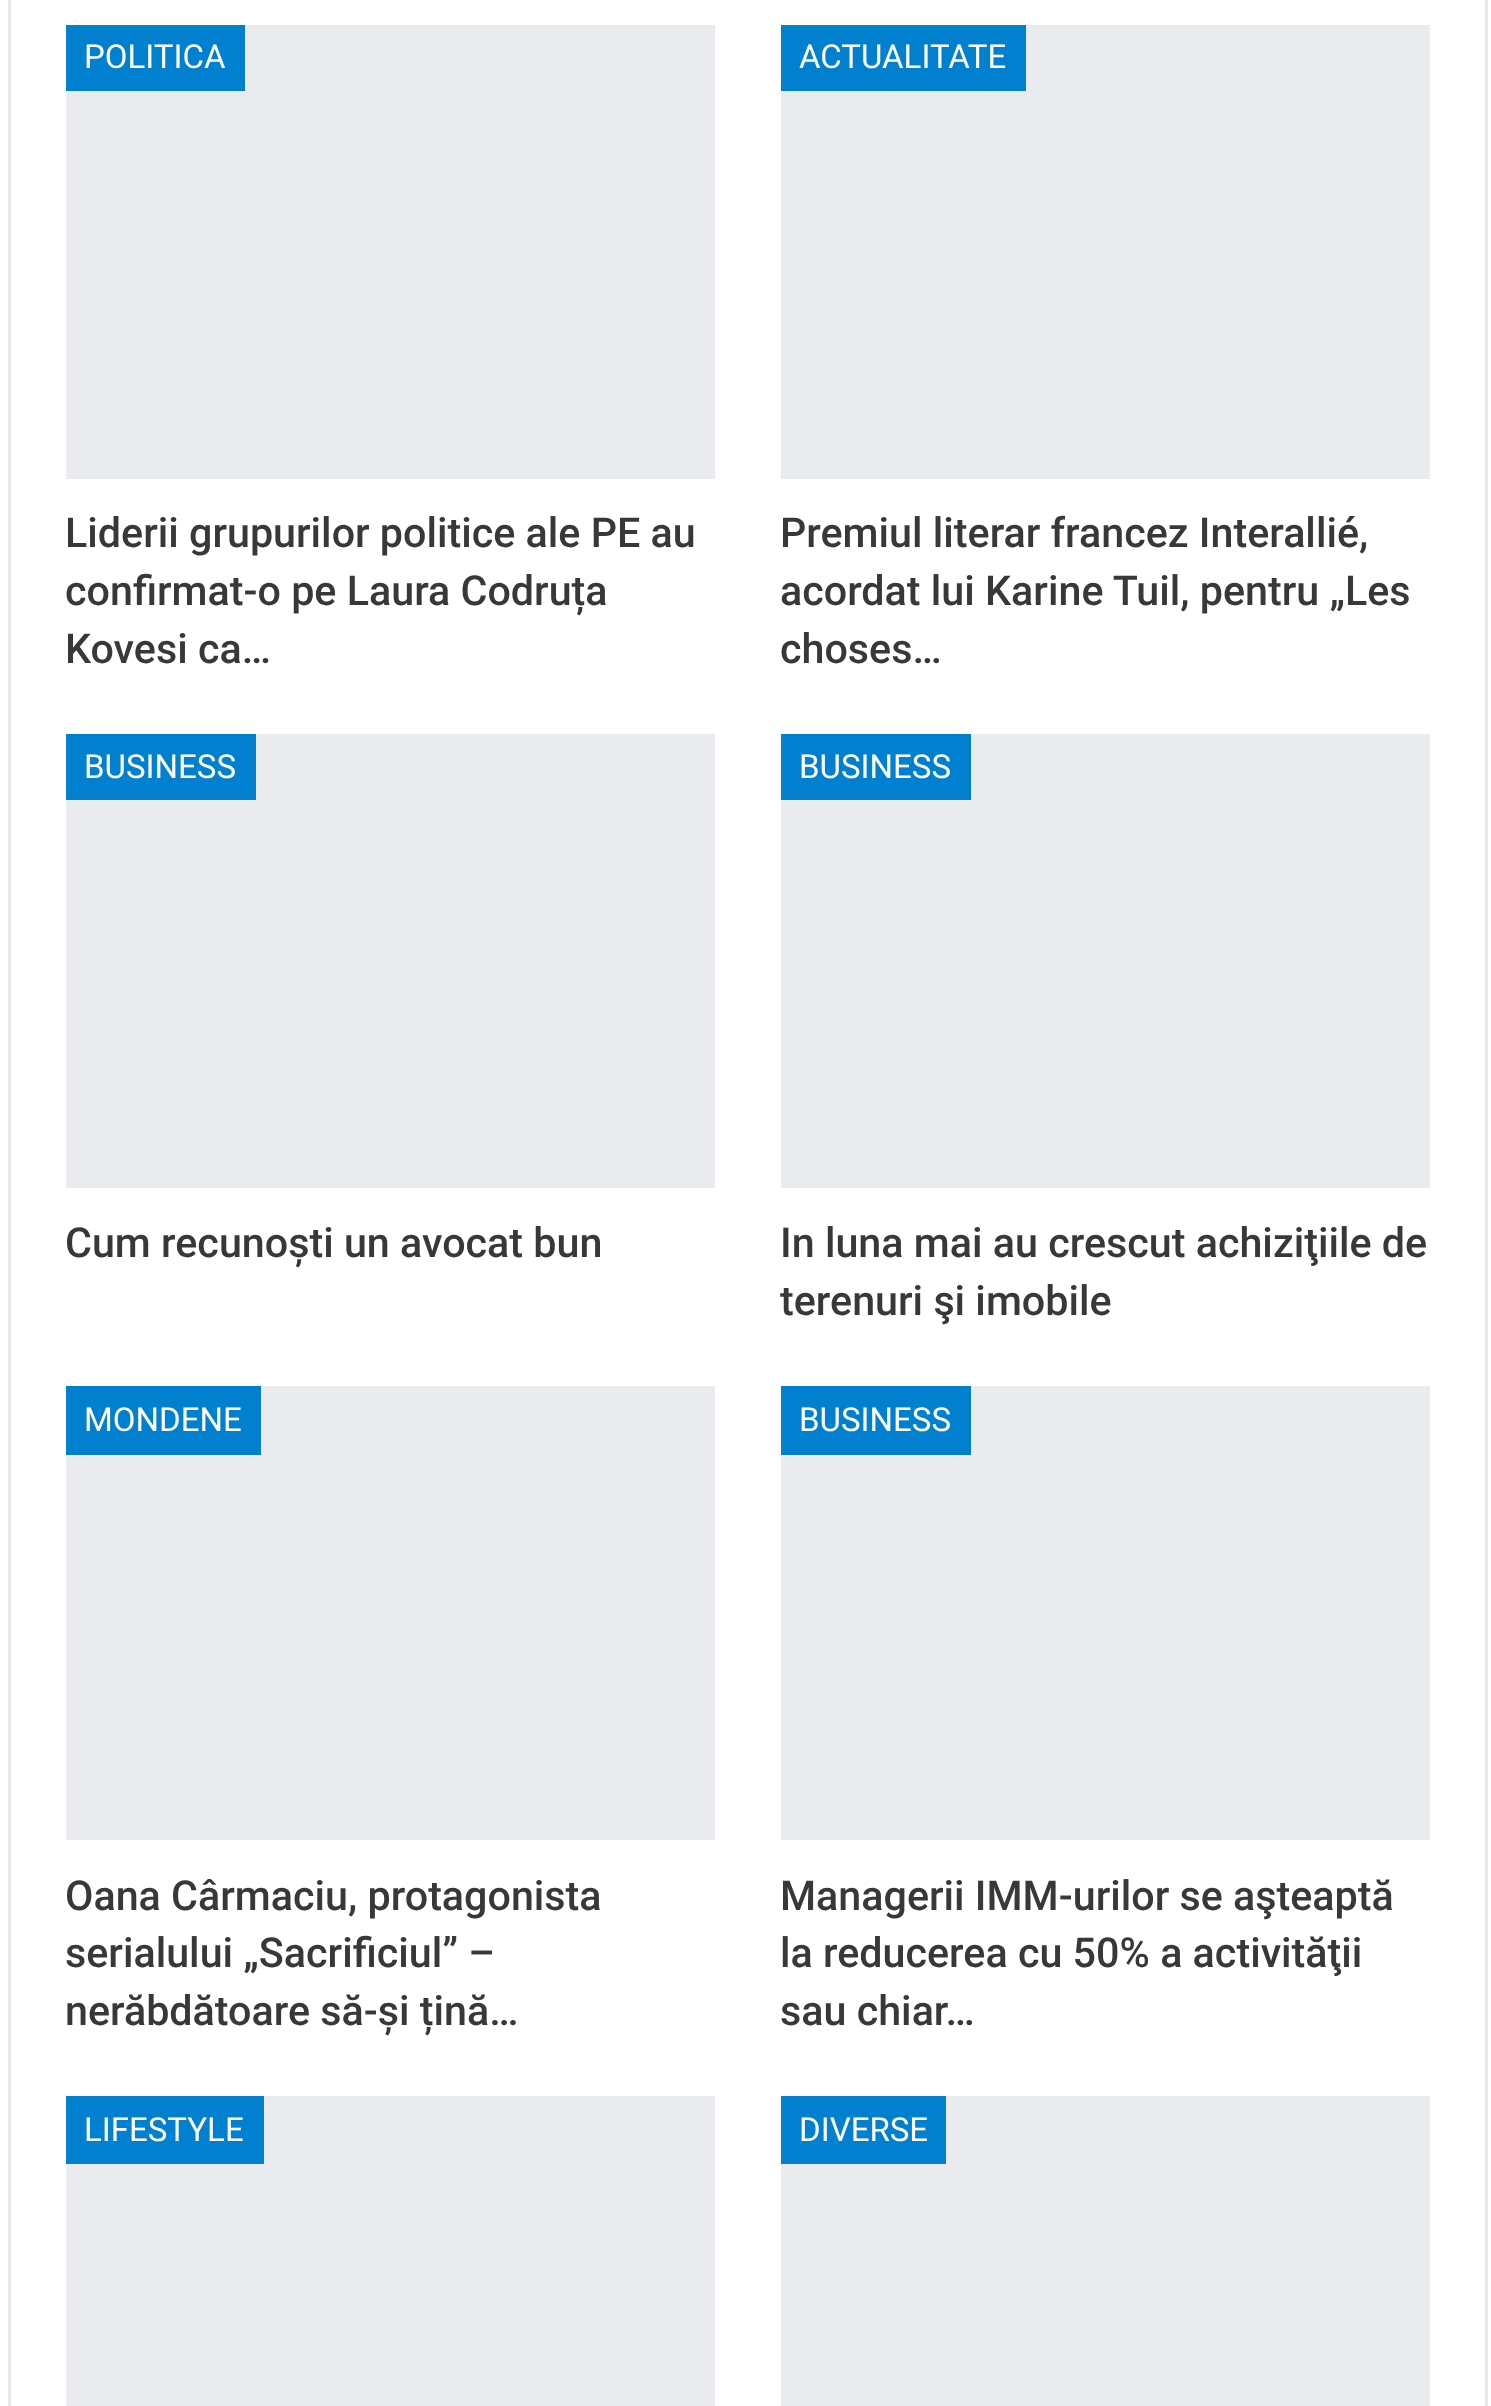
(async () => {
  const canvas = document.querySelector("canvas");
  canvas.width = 1491;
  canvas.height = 2406;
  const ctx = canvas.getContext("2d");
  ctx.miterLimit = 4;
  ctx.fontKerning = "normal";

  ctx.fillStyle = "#ffffff";
  ctx.fillRect(0, 0, 1491, 2406);
  ctx.strokeStyle = "#e8e8e8";
  ctx.lineWidth = 3;
  ctx.strokeRect(9.5, -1.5, 1477, 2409);
  for (const [x, y, w, h, color] of [
    [66, 25, 649, 454, "#e9ebee"],
    [66, 25, 179, 66, "#0080ce"],
    [781, 25, 649, 454, "#e9ebee"],
    [781, 25, 245, 66, "#0080ce"],
    [66, 734, 649, 454, "#e9ebee"],
    [66, 734, 190, 66, "#0080ce"],
    [781, 734, 649, 454, "#e9ebee"],
    [781, 734, 190, 66, "#0080ce"],
    [66, 1386, 649, 454, "#e9ebee"],
    [66, 1386, 195, 69, "#0080ce"],
    [781, 1386, 649, 454, "#e9ebee"],
    [781, 1386, 190, 69, "#0080ce"],
    [66, 2096, 649, 310, "#e9ebee"],
    [66, 2096, 198, 68, "#0080ce"],
    [781, 2096, 649, 310, "#e9ebee"],
    [781, 2096, 165, 68, "#0080ce"],
  ]) {
    ctx.fillStyle = color;
    ctx.fillRect(x, y, w, h);
  }
  ctx.font = "33px Roboto";
  ctx.fillStyle = "#ffffff";
  ctx.fillText("POLITICA", 84, 68);
  ctx.font = "500 41.25px Roboto";
  ctx.fillStyle = "#383838";
  for (const [text, x, y] of [
    ["Liderii grupurilor politice ale PE au", 65, 547],
    ["confirmat-o pe Laura Codruța", 65, 605],
    ["Kovesi ca…", 65, 663],
  ]) {
    ctx.fillText(text, x, y);
  }
  ctx.font = "33px Roboto";
  ctx.fillStyle = "#ffffff";
  ctx.fillText("ACTUALITATE", 799, 68);
  ctx.font = "500 41.25px Roboto";
  ctx.fillStyle = "#383838";
  for (const [text, x, y] of [
    ["Premiul literar francez Interallié,", 780, 547],
    ["acordat lui Karine Tuil, pentru „Les", 780, 605],
    ["choses…", 780, 663],
  ]) {
    ctx.fillText(text, x, y);
  }
  ctx.font = "33px Roboto";
  ctx.fillStyle = "#ffffff";
  ctx.fillText("BUSINESS", 84, 778);
  ctx.font = "500 41.25px Roboto";
  ctx.fillStyle = "#383838";
  ctx.fillText("Cum recunoști un avocat bun", 65, 1257);
  ctx.font = "33px Roboto";
  ctx.fillStyle = "#ffffff";
  ctx.fillText("BUSINESS", 799, 778);
  ctx.font = "500 41.25px Roboto";
  ctx.fillStyle = "#383838";
  ctx.fillText("In luna mai au crescut achiziţiile de", 780, 1257);
  ctx.fillText("terenuri şi imobile", 780, 1315);
  ctx.font = "33px Roboto";
  ctx.fillStyle = "#ffffff";
  ctx.fillText("MONDENE", 84, 1431);
  ctx.font = "500 41.25px Roboto";
  ctx.fillStyle = "#383838";
  for (const [text, x, y] of [
    ["Oana Cârmaciu, protagonista", 65, 1910],
    ["serialului „Sacrificiul” –", 65, 1967],
    ["nerăbdătoare să-și țină…", 65, 2025],
  ]) {
    ctx.fillText(text, x, y);
  }
  ctx.font = "33px Roboto";
  ctx.fillStyle = "#ffffff";
  ctx.fillText("BUSINESS", 799, 1431);
  ctx.font = "500 41.25px Roboto";
  ctx.fillStyle = "#383838";
  for (const [text, x, y] of [
    ["Managerii IMM-urilor se aşteaptă", 780, 1910],
    ["la reducerea cu 50% a activităţii", 780, 1967],
    ["sau chiar…", 780, 2025],
  ]) {
    ctx.fillText(text, x, y);
  }
  ctx.font = "33px Roboto";
  ctx.fillStyle = "#ffffff";
  ctx.fillText("LIFESTYLE", 84, 2141);
  ctx.fillText("DIVERSE", 799, 2141);
})();
